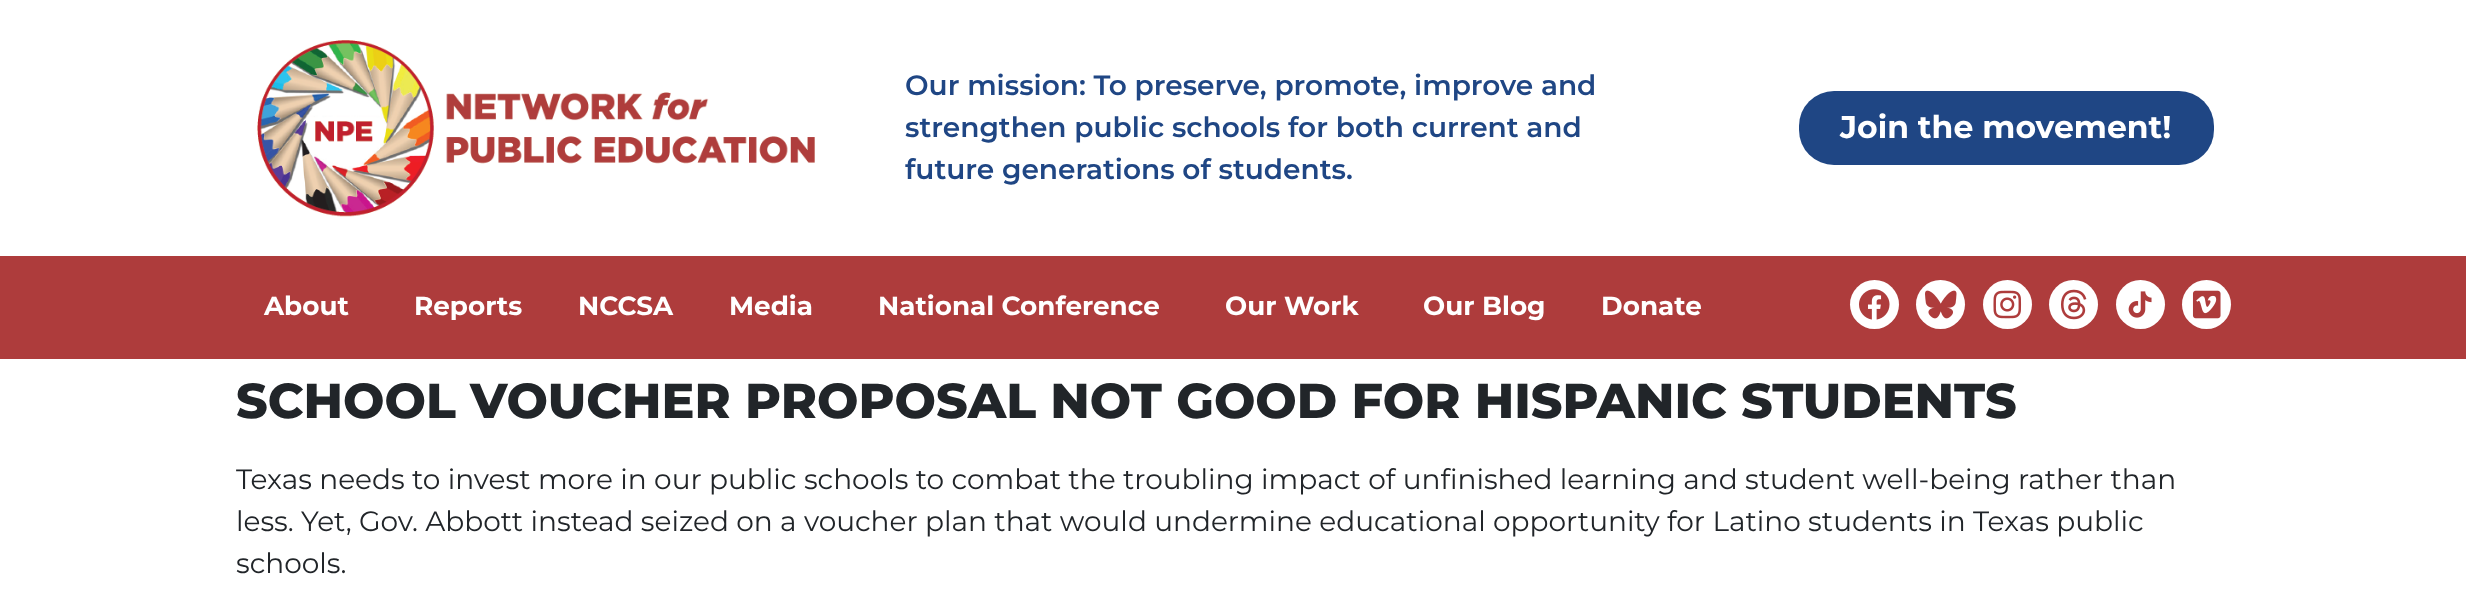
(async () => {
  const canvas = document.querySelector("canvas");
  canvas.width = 2466;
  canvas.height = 609;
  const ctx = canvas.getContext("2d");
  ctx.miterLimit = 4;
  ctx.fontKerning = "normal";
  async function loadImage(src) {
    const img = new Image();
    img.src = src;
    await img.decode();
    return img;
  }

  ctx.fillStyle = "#ffffff";
  ctx.fillRect(0, 0, 2466, 609);
  ctx.drawImage(await loadImage("img/1.png"), 257, 40, 558, 177);
  ctx.fillStyle = "#1f4684";
  ctx.beginPath();
  ctx.roundRect(1799, 91, 415, 74, 35);
  ctx.fill();
  ctx.fillStyle = "#ae3c3c";
  ctx.fillRect(0, 256, 2466, 103);
  ctx.fillStyle = "#ffffff";
  ctx.beginPath();
  ctx.arc(1874.5, 304.5, 24.5, 0, Math.PI * 2);
  ctx.fill();
  ctx.drawImage(await loadImage("img/2.png"), 1859, 289, 31, 31);
  ctx.beginPath();
  ctx.arc(1940.5, 304.5, 24.5, 0, Math.PI * 2);
  ctx.fill();
  ctx.drawImage(await loadImage("img/3.png"), 1925, 290, 32, 29);
  ctx.beginPath();
  ctx.arc(2007.5, 304.5, 24.5, 0, Math.PI * 2);
  ctx.fill();
  ctx.drawImage(await loadImage("img/4.png"), 1993, 290, 29, 29);
  ctx.beginPath();
  ctx.arc(2073.5, 304.5, 24.5, 0, Math.PI * 2);
  ctx.fill();
  ctx.drawImage(await loadImage("img/5.png"), 2061, 289, 26, 31);
  ctx.beginPath();
  ctx.arc(2140.5, 304.5, 24.5, 0, Math.PI * 2);
  ctx.fill();
  ctx.drawImage(await loadImage("img/6.png"), 2128, 291, 24, 27);
  ctx.beginPath();
  ctx.arc(2206.5, 304.5, 24.5, 0, Math.PI * 2);
  ctx.fill();
  ctx.drawImage(await loadImage("img/7.png"), 2192, 290, 29, 29);
  ctx.font = "600 28px Montserrat";
  ctx.fillStyle = "#1f4684";
  for (const [text, x, y] of [
    ["Our mission: To preserve, promote, improve and", 905, 95],
    ["strengthen public schools for both current and", 905, 137],
    ["future generations of students.", 905, 179],
  ]) {
    ctx.fillText(text, x, y);
  }
  ctx.font = "bold 31.5px Montserrat";
  ctx.fillStyle = "#ffffff";
  ctx.fillText("Join the movement!", 1840, 138);
  ctx.font = "bold 26.25px Montserrat";
  for (const [text, x, y] of [
    ["About", 264, 315],
    ["Reports", 414, 315],
    ["NCCSA", 578, 315],
    ["Media", 729, 315],
    ["National Conference", 878, 315],
    ["Our Work", 1225, 315],
    ["Our Blog", 1423, 315],
    ["Donate", 1601, 315],
  ]) {
    ctx.fillText(text, x, y);
  }
  ctx.font = "800 49px Montserrat";
  ctx.fillStyle = "#212529";
  ctx.fillText("SCHOOL VOUCHER PROPOSAL NOT GOOD FOR HISPANIC STUDENTS", 236, 418);
  ctx.font = "28px Montserrat";
  for (const [text, x, y] of [
    ["Texas needs to invest more in our public schools to combat the troubling impact of unfinished learning and student well-being rather than", 236, 489],
    ["less. Yet, Gov. Abbott instead seized on a voucher plan that would undermine educational opportunity for Latino students in Texas public", 236, 531],
    ["schools.", 236, 573],
  ]) {
    ctx.fillText(text, x, y);
  }
})();
